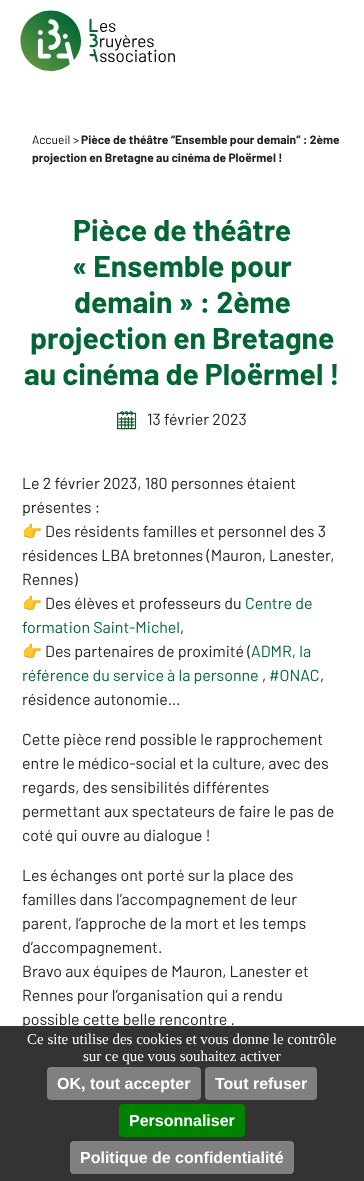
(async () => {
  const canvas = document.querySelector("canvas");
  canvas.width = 364;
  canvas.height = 1181;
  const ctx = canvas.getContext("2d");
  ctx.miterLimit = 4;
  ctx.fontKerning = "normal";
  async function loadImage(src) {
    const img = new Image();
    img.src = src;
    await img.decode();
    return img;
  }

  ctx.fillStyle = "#ffffff";
  ctx.fillRect(0, 0, 364, 1181);
  ctx.drawImage(await loadImage("img/1.png"), 20, 10, 155, 61);
  ctx.drawImage(await loadImage("img/2.png"), 117, 411, 20, 19);
  ctx.font = "12px Barlow";
  ctx.fillStyle = "#000000";
  ctx.fillText("Accueil", 32, 144);
  ctx.fillStyle = "#222222";
  ctx.fillText(">", 73, 144);
  ctx.font = "bold 12px Barlow";
  ctx.fillText("Pièce de théâtre “Ensemble pour demain” : 2ème", 81, 144);
  ctx.fillText("projection en Bretagne au cinéma de Ploërmel !", 32, 162);
  ctx.font = "bold 30px Barlow";
  ctx.fillStyle = "#026634";
  for (const [text, x, y] of [
    ["Pièce de théâtre", 73, 241],
    ["« Ensemble pour", 72, 277],
    ["demain » : 2ème", 74, 313],
    ["projection en Bretagne", 30, 349],
    ["au cinéma de Ploërmel !", 24, 385],
  ]) {
    ctx.fillText(text, x, y);
  }
  ctx.font = "16px Barlow";
  ctx.fillStyle = "#222222";
  for (const [text, x, y] of [
    ["13 février 2023", 147, 425],
    ["Le 2 février 2023, 180 personnes étaient", 22, 489],
    ["présentes :", 22, 513],
  ]) {
    ctx.fillText(text, x, y);
  }
  ctx.font = "16px Noto Color Emoji";
  ctx.fillText("👉", 22, 537);
  ctx.font = "16px Barlow";
  for (const [text, x, y] of [
    ["Des résidents familles et personnel des 3", 45, 537],
    ["résidences LBA bretonnes (Mauron, Lanester,", 22, 561],
    ["Rennes)", 22, 585],
  ]) {
    ctx.fillText(text, x, y);
  }
  ctx.font = "16px Noto Color Emoji";
  ctx.fillText("👉", 22, 609);
  ctx.font = "16px Barlow";
  ctx.fillText("Des élèves et professeurs du", 45, 609);
  ctx.fillStyle = "#026634";
  ctx.fillText("Centre de", 245, 609);
  ctx.fillText("formation Saint-Michel", 22, 633);
  ctx.fillStyle = "#222222";
  ctx.fillText(",", 180, 633);
  ctx.font = "16px Noto Color Emoji";
  ctx.fillText("👉", 22, 657);
  ctx.font = "16px Barlow";
  ctx.fillText("Des partenaires de proximité (", 45, 657);
  ctx.fillStyle = "#026634";
  ctx.fillText("ADMR, la", 251, 657);
  ctx.fillText("référence du service à la personne", 22, 681);
  ctx.fillStyle = "#222222";
  ctx.fillText(",", 262, 681);
  ctx.fillStyle = "#026634";
  ctx.fillText("#ONAC", 269, 681);
  ctx.fillStyle = "#222222";
  for (const [text, x, y] of [
    [",", 320, 681],
    ["résidence autonomie…", 22, 705],
    ["Cette pièce rend possible le rapprochement", 22, 745],
    ["entre le médico-social et la culture, avec des", 22, 769],
    ["regards, des sensibilités différentes", 22, 793],
    ["permettant aux spectateurs de faire le pas de", 22, 817],
    ["coté qui ouvre au dialogue !", 22, 841],
    ["Les échanges ont porté sur la place des", 22, 881],
    ["familles dans l’accompagnement de leur", 22, 905],
    ["parent, l’approche de la mort et les temps", 22, 929],
    ["d’accompagnement.", 22, 953],
    ["Bravo aux équipes de Mauron, Lanester et", 22, 977],
    ["Rennes pour l’organisation qui a rendu", 22, 1001],
    ["possible cette belle rencontre .", 22, 1025],
  ]) {
    ctx.fillText(text, x, y);
  }
  ctx.fillStyle = "#333333";
  ctx.fillRect(0, 1026, 364, 155);
  ctx.font = "15px Liberation Serif";
  ctx.fillStyle = "#ffffff";
  ctx.fillText("Ce site utilise des cookies et vous donne le contrôle", 27, 1044);
  ctx.fillText("sur ce que vous souhaitez activer", 83, 1061);
  ctx.fillStyle = "#808080";
  ctx.beginPath();
  ctx.roundRect(47, 1067, 154, 33, 4);
  ctx.fill();
  ctx.font = "bold 16px Liberation Sans";
  ctx.fillStyle = "#ffffff";
  ctx.fillText("OK, tout accepter", 57, 1089);
  ctx.fillStyle = "#808080";
  ctx.beginPath();
  ctx.roundRect(205, 1067, 112, 33, 4);
  ctx.fill();
  ctx.fillStyle = "#ffffff";
  ctx.fillText("Tout refuser", 215, 1089);
  ctx.fillStyle = "#008300";
  ctx.beginPath();
  ctx.roundRect(119, 1104, 126, 33, 4);
  ctx.fill();
  ctx.fillStyle = "#ffffff";
  ctx.fillText("Personnaliser", 129, 1126);
  ctx.fillStyle = "#808080";
  ctx.beginPath();
  ctx.roundRect(70, 1141, 224, 33, 4);
  ctx.fill();
  ctx.fillStyle = "#ffffff";
  ctx.fillText("Politique de confidentialité", 80, 1163);
})();
